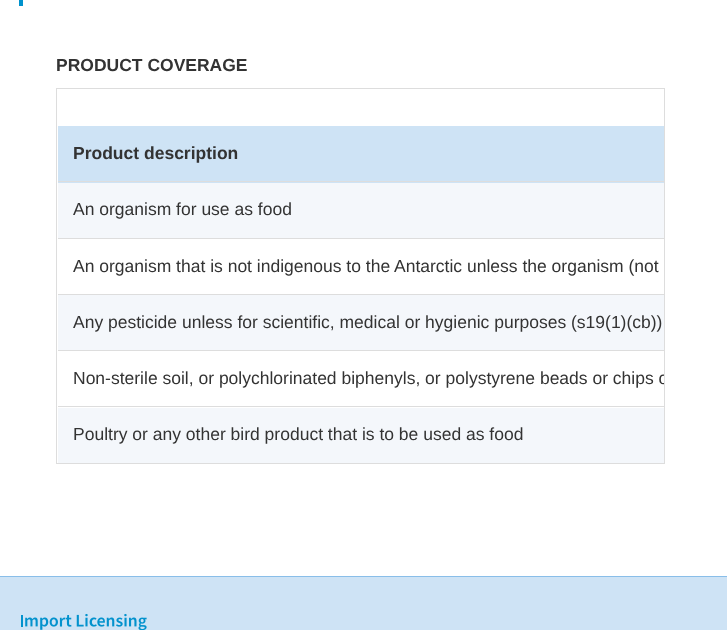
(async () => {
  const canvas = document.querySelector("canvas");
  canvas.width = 727;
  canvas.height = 630;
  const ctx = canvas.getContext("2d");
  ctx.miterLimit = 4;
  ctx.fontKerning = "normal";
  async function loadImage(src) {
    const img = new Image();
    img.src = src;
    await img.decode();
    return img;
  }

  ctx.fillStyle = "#ffffff";
  ctx.fillRect(0, 0, 727, 630);
  ctx.fillStyle = "#0092cd";
  ctx.fillRect(19, 0, 4, 6);
  ctx.strokeStyle = "#dddddd";
  ctx.strokeRect(56.5, 88.5, 608, 375);
  for (const [x, y, w, h, color] of [
    [58, 126, 606, 57, "#cee3f5"],
    [58, 183, 606, 55, "#f4f7fb"],
    [58, 181, 606, 1, "#dddddd"],
    [58, 238, 606, 1, "#dddddd"],
    [58, 295, 606, 55, "#f4f7fb"],
    [58, 294, 606, 1, "#dddddd"],
    [58, 350, 606, 1, "#dddddd"],
    [58, 408, 606, 55, "#f4f7fb"],
    [58, 406, 606, 1, "#dddddd"],
    [0, 577, 727, 53, "#cee3f5"],
    [0, 576, 727, 1, "#89bee9"],
  ]) {
    ctx.fillStyle = color;
    ctx.fillRect(x, y, w, h);
  }
  ctx.drawImage(await loadImage("img/1.png"), 21, 613, 126, 17);
  ctx.font = "bold 17.5px Liberation Sans";
  ctx.fillStyle = "#333333";
  ctx.fillText("PRODUCT COVERAGE", 56, 71);
  ctx.fillText("Product description", 73, 159);
  ctx.font = "17.5px Liberation Sans";
  for (const [text, x, y] of [
    ["An organism for use as food", 73, 215],
    ["An organism that is not indigenous to the Antarctic unless the organism (not", 73, 272],
    ["Any pesticide unless for scientific, medical or hygienic purposes (s19(1)(cb))", 73, 328],
  ]) {
    ctx.fillText(text, x, y);
  }
  ctx.save();
  ctx.beginPath();
  ctx.rect(58, 89, 606, 374);
  ctx.clip();
  ctx.fillText("Non-sterile soil, or polychlorinated biphenyls, or polystyrene beads or chips o", 73, 384);
  ctx.restore();
  ctx.fillText("Poultry or any other bird product that is to be used as food", 73, 440);
})();
